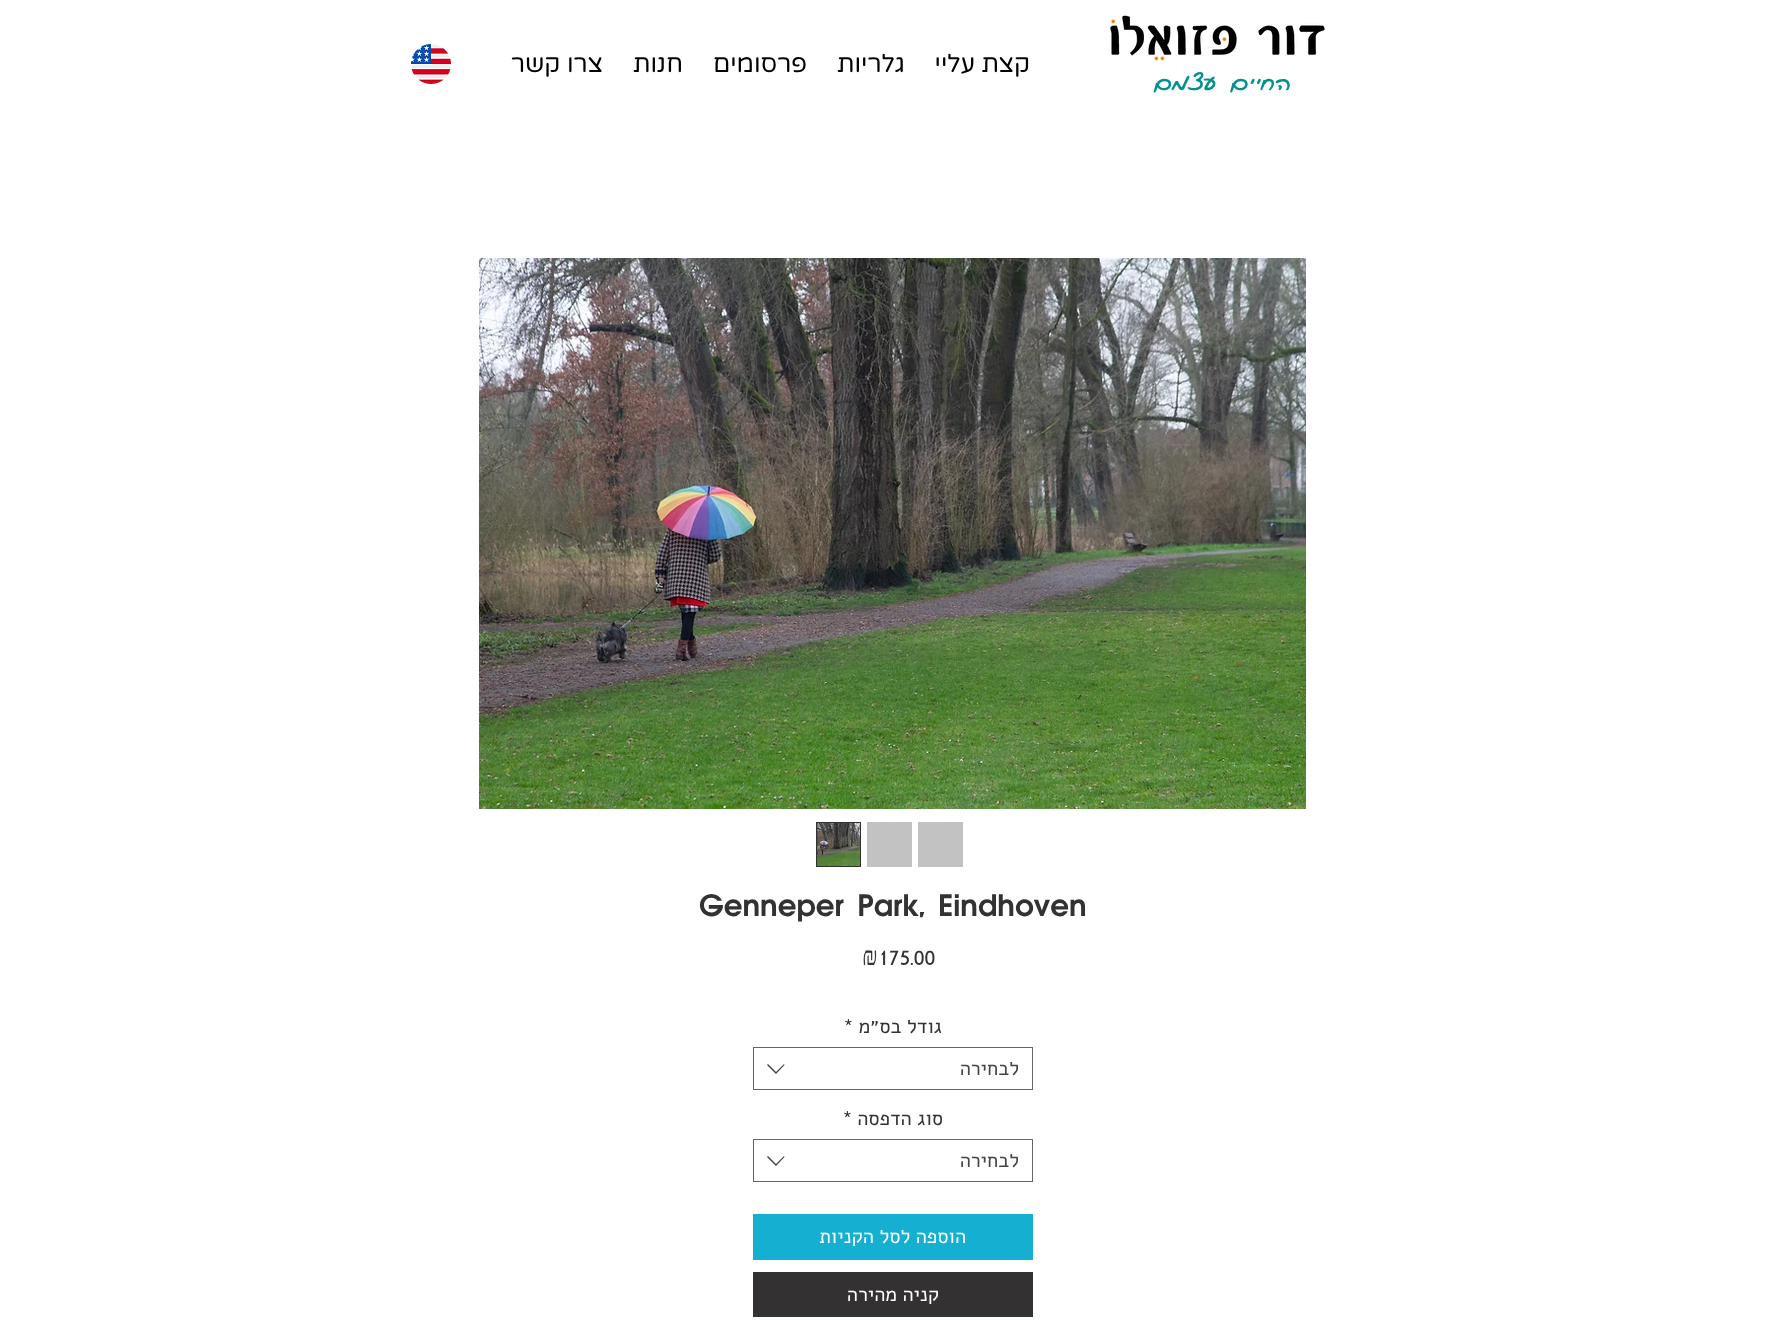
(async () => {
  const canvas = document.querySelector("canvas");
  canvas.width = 1785;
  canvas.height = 1336;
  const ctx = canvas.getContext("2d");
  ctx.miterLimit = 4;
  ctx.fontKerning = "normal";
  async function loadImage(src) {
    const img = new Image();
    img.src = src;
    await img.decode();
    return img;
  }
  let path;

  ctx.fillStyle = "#ffffff";
  ctx.fillRect(0, 0, 1785, 1336);
  ctx.drawImage(await loadImage("img/1.png"), 1110, 15, 215, 46);
  ctx.drawImage(await loadImage("img/2.png"), 411, 44, 40, 40);
  ctx.drawImage(await loadImage("img/3.png"), 479, 258, 827, 551);
  ctx.fillStyle = "#c2c2c2";
  ctx.fillRect(918, 822, 45, 45);
  ctx.fillRect(867, 822, 45, 45);
  ctx.strokeStyle = "#333131";
  ctx.strokeRect(816.5, 822.5, 44, 44);
  ctx.drawImage(await loadImage("img/4.png"), 817, 823, 43, 43);
  ctx.strokeStyle = "#666666";
  ctx.strokeRect(753.5, 1047.5, 279, 42);
  ctx.fillStyle = "#444444";
  path = new Path2D("M784 1064L784.5 1065L776 1074L767 1065L768 1064L776 1072Z");
  ctx.fill(path, "evenodd");
  ctx.strokeRect(753.5, 1139.5, 279, 42);
  path = new Path2D("M784 1156L784.5 1157L776 1166L767 1157L768 1156L776 1164Z");
  ctx.fill(path, "evenodd");
  ctx.fillStyle = "#15afd1";
  ctx.fillRect(753, 1214, 280, 46);
  ctx.fillStyle = "#333131";
  ctx.fillRect(753, 1272, 280, 45);
  ctx.direction = "rtl";
  ctx.font = "25px Varela Round";
  ctx.fillStyle = "#000000";
  for (const [text, x, y] of [
    ["קצת עליי", 1030, 72],
    ["גלריות", 905, 72],
    ["פרסומים", 807, 72],
    ["חנות", 683, 72],
    ["צרו קשר", 603, 72],
  ]) {
    ctx.fillText(text, x, y);
  }
  ctx.font = "italic bold 22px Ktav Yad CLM";
  ctx.fillStyle = "#009193";
  ctx.fillText("החיים עצמם", 1289, 90);
  ctx.direction = "ltr";
  ctx.font = "bold 32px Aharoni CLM";
  ctx.fillStyle = "#333131";
  ctx.fillText("Genneper Park, Eindhoven", 699, 916);
  ctx.font = "26px Aharoni CLM";
  ctx.fillText("175.00", 878, 965);
  ctx.font = "26px Liberation Serif";
  ctx.fillText("₪", 862, 965);
  ctx.direction = "rtl";
  ctx.font = "20px Alef";
  ctx.fillText("גודל בס״מ", 942, 1033);
  ctx.direction = "ltr";
  ctx.fillText("*", 843, 1033);
  ctx.direction = "rtl";
  ctx.fillStyle = "#444444";
  ctx.fillText("לבחירה", 1019, 1075);
  ctx.fillStyle = "#333131";
  ctx.fillText("סוג הדפסה", 943, 1125);
  ctx.direction = "ltr";
  ctx.fillText("*", 842, 1125);
  ctx.direction = "rtl";
  ctx.fillStyle = "#444444";
  ctx.fillText("לבחירה", 1019, 1167);
  ctx.fillStyle = "#ffffff";
  ctx.fillText("הוספה לסל הקניות", 966, 1243);
  ctx.fillText("קניה מהירה", 939, 1301);
})();
